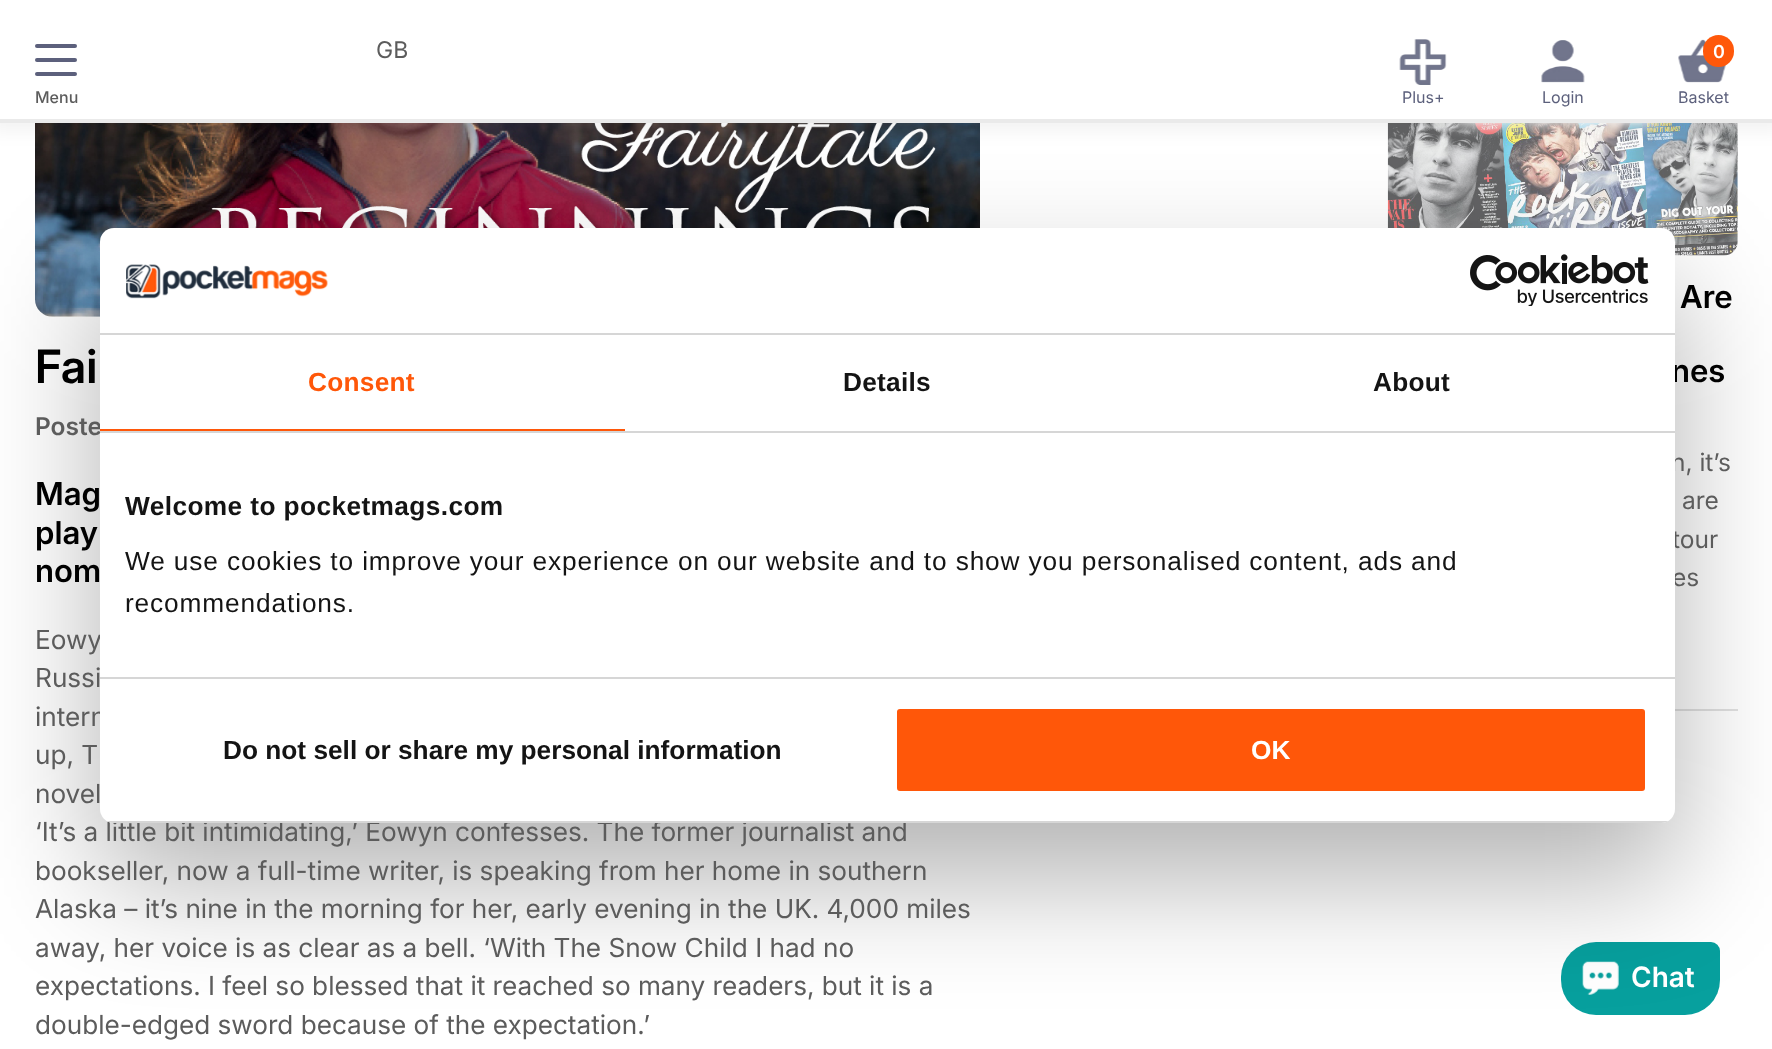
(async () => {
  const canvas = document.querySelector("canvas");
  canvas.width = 1772;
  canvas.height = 1049;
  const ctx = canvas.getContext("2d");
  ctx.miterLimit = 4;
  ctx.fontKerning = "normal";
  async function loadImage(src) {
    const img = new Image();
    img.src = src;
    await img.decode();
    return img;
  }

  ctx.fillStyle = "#ffffff";
  ctx.fillRect(0, 0, 1772, 1049);
  ctx.drawImage(await loadImage("img/4.png"), 35, 123, 945, 194);
  ctx.drawImage(await loadImage("img/5.png"), 1387, 123, 351, 133);
  ctx.fillStyle = "rgba(0, 0, 0, 0.05)";
  ctx.filter = "blur(9px)";
  ctx.beginPath();
  ctx.rect(-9, -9, 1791, 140);
  ctx.fill();
  ctx.filter = "none";
  ctx.fillStyle = "#ffffff";
  ctx.fillRect(0, 0, 1772, 119);
  ctx.fillStyle = "#eaeaea";
  ctx.fillRect(0, 119, 1772, 4);
  ctx.fillStyle = "#5c607c";
  ctx.beginPath();
  ctx.roundRect(35, 44, 42, 4, 2);
  ctx.fill();
  ctx.beginPath();
  ctx.roundRect(35, 58, 42, 4, 2);
  ctx.fill();
  ctx.beginPath();
  ctx.roundRect(35, 72, 42, 4, 2);
  ctx.fill();
  ctx.drawImage(await loadImage("img/1.png"), 1399, 39, 48, 46);
  ctx.drawImage(await loadImage("img/2.png"), 1541, 40, 44, 43);
  ctx.drawImage(await loadImage("img/3.png"), 1678, 39, 49, 44);
  ctx.fillStyle = "#ff580a";
  ctx.beginPath();
  ctx.roundRect(1703, 35, 31, 32, 15.5);
  ctx.fill();
  ctx.fillStyle = "#e1e1e1";
  ctx.fillRect(1675, 709, 63, 2);
  ctx.fillStyle = "#07a09e";
  ctx.beginPath();
  ctx.roundRect(1561, 942, 159, 73, [35, 9, 35, 35]);
  ctx.fill();
  ctx.drawImage(await loadImage("img/6.png"), 1582, 961, 37, 34);
  ctx.fillStyle = "rgba(0, 0, 0, 0.3)";
  ctx.filter = "blur(59.5px)";
  ctx.beginPath();
  ctx.roundRect(100, 284, 1575, 595, 14);
  ctx.fill();
  ctx.filter = "none";
  ctx.font = "500 16px Inter";
  ctx.fillStyle = "#5c5c5c";
  ctx.fillText("Menu", 35, 103);
  ctx.font = "23px Inter";
  ctx.fillText("GB", 376, 58);
  ctx.font = "16px Inter";
  ctx.fillStyle = "#5c607c";
  ctx.fillText("Plus+", 1402, 103);
  ctx.fillText("Login", 1542, 103);
  ctx.font = "600 18px 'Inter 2'";
  ctx.fillStyle = "#ffffff";
  ctx.fillText("0", 1713, 58);
  ctx.font = "16px Inter";
  ctx.fillStyle = "#5c607c";
  ctx.fillText("Basket", 1678, 103);
  ctx.font = "600 46px Inter";
  ctx.fillStyle = "#000000";
  ctx.fillText("Fai", 35, 383);
  ctx.font = "600 24.5px 'Inter 2'";
  ctx.fillStyle = "#5c5c5c";
  ctx.fillText("Poste", 35, 435);
  ctx.font = "600 31.5px 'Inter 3'";
  ctx.fillStyle = "#000000";
  for (const [text, x, y] of [
    ["Mag", 35, 505],
    ["play", 35, 544],
    ["nom", 35, 582],
  ]) {
    ctx.fillText(text, x, y);
  }
  ctx.font = "26.25px 'Inter 2'";
  ctx.fillStyle = "#5c5c5c";
  for (const [text, x, y] of [
    ["Eowy", 35, 649],
    ["Russi", 35, 687],
    ["intern", 35, 726],
    ["up, T", 35, 764],
    ["novel", 35, 803],
    ["‘It’s a little bit intimidating,’ Eowyn confesses. The former journalist and", 35, 841],
    ["bookseller, now a full-time writer, is speaking from her home in southern", 35, 880],
    ["Alaska – it’s nine in the morning for her, early evening in the UK. 4,000 miles", 35, 918],
    ["away, her voice is as clear as a bell. ‘With The Snow Child I had no", 35, 957],
    ["expectations. I feel so blessed that it reached so many readers, but it is a", 35, 995],
    ["double-edged sword because of the expectation.’", 35, 1034],
  ]) {
    ctx.fillText(text, x, y);
  }
  ctx.font = "600 31.5px 'Inter 3'";
  ctx.fillStyle = "#000000";
  ctx.fillText("Are", 1680, 308);
  ctx.fillText("nes", 1671, 382);
  ctx.font = "24.5px Inter";
  ctx.fillStyle = "#5c5c5c";
  for (const [text, x, y] of [
    ["n, it’s", 1671, 471],
    ["are", 1682, 509],
    ["tour", 1672, 548],
    ["es", 1672, 586],
  ]) {
    ctx.fillText(text, x, y);
  }
  ctx.font = "600 28px 'Inter 2'";
  ctx.fillStyle = "#ffffff";
  ctx.fillText("Chat", 1631, 987);
  ctx.beginPath();
  ctx.roundRect(100, 228, 1575, 595, 14);
  ctx.fill();
  ctx.fillStyle = "#d6d6d6";
  ctx.fillRect(100, 333, 1575, 2);
  ctx.drawImage(await loadImage("img/7.png"), 126, 264, 202, 35);
  ctx.drawImage(await loadImage("img/8.png"), 1470, 254, 179, 52);
  ctx.fillRect(100, 431, 1575, 2);
  ctx.fillStyle = "#ff5709";
  ctx.fillRect(100, 429, 525, 2);
  ctx.letterSpacing = "0.25px";
  ctx.font = "bold 26.25px Liberation Sans";
  ctx.fillText("Consent", 308, 391);
  ctx.fillStyle = "#141414";
  ctx.fillText("Details", 843, 391);
  ctx.fillText("About", 1373, 391);
  ctx.fillStyle = "#d6d6d6";
  ctx.fillRect(100, 677, 1575, 2);
  ctx.letterSpacing = "0.4px";
  ctx.fillStyle = "#141414";
  ctx.fillText("Welcome to pocketmags.com", 125, 515);
  ctx.letterSpacing = "0.88px";
  ctx.font = "26.25px Liberation Sans";
  ctx.fillText("We use cookies to improve your experience on our website and to show you personalised content, ads and", 125, 570);
  ctx.fillText("recommendations.", 125, 612);
  ctx.save();
  ctx.beginPath();
  ctx.roundRect(100, 228, 1575, 595, 14);
  ctx.clip();
  ctx.fillStyle = "#d6d6d6";
  ctx.fillRect(100, 821, 1575, 2);
  ctx.restore();
  ctx.letterSpacing = "0px";
  ctx.font = "bold 26.25px Liberation Sans";
  ctx.fillText("Do not sell or share my personal information", 223, 759);
  ctx.fillStyle = "#ff5709";
  ctx.beginPath();
  ctx.roundRect(895, 707, 752, 86, 5);
  ctx.fill();
  ctx.strokeStyle = "#ffffff";
  ctx.lineWidth = 4;
  ctx.stroke();
  ctx.fillStyle = "#ffffff";
  ctx.fillText("OK", 1251, 759);
})();
